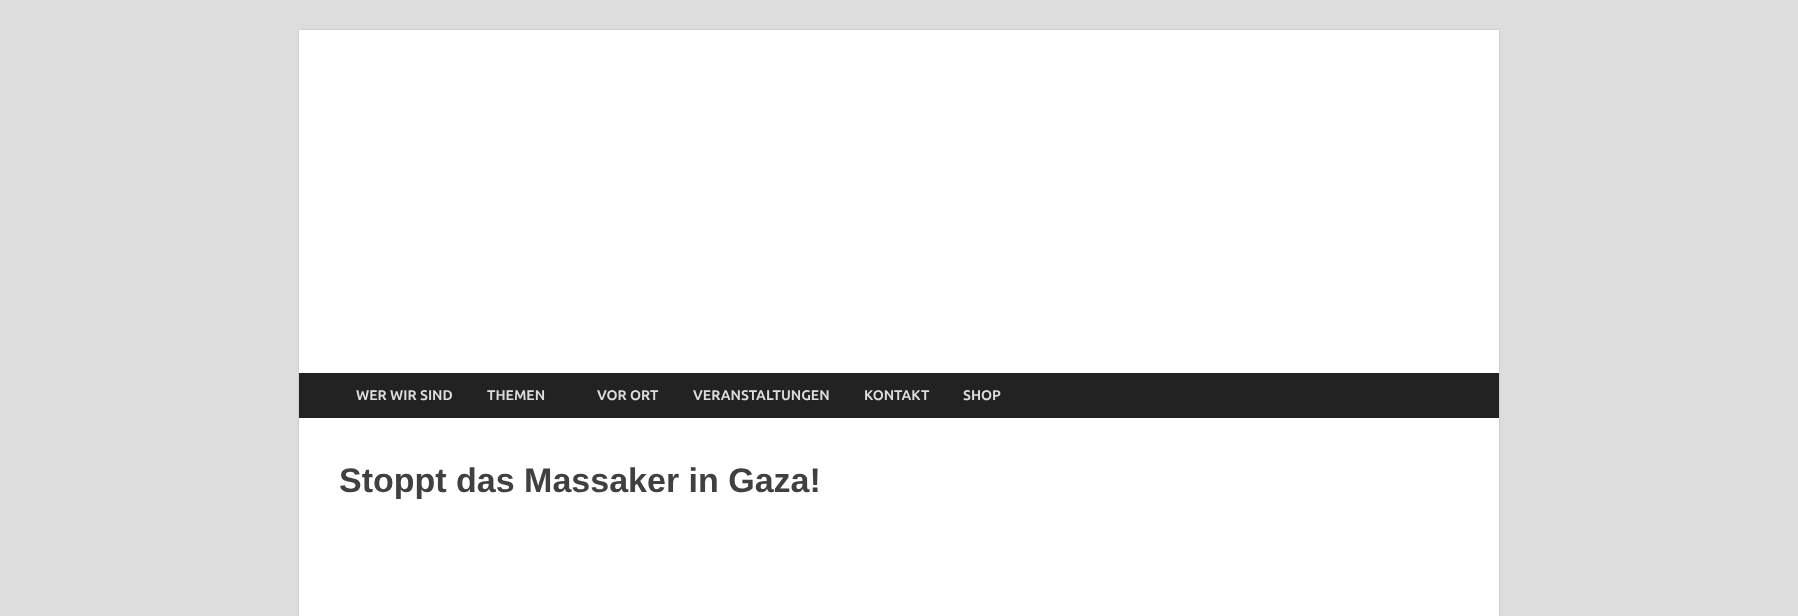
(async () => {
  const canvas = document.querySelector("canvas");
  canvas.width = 1798;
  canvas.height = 616;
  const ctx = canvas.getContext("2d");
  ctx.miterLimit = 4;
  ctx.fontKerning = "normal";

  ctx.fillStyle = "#dddddd";
  ctx.fillRect(0, 0, 1798, 616);
  ctx.fillStyle = "#bbbbbb";
  ctx.filter = "blur(1px)";
  ctx.beginPath();
  ctx.rect(299, 30, 1200, 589);
  ctx.fill();
  ctx.filter = "none";
  ctx.fillStyle = "#ffffff";
  ctx.fillRect(299, 30, 1200, 586);
  ctx.fillStyle = "#222222";
  ctx.fillRect(299, 373, 1200, 45);
  ctx.font = "bold 14px Ubuntu";
  ctx.fillStyle = "#dddddd";
  for (const [text, x, y] of [
    ["WER WIR SIND", 356, 400],
    ["THEMEN", 487, 400],
    ["VOR ORT", 597, 400],
    ["VERANSTALTUNGEN", 693, 400],
    ["KONTAKT", 864, 400],
    ["SHOP", 963, 400],
  ]) {
    ctx.fillText(text, x, y);
  }
  ctx.font = "bold 34px Liberation Sans";
  ctx.fillStyle = "#404040";
  ctx.fillText("Stoppt das Massaker in Gaza!", 339, 492);
})();
